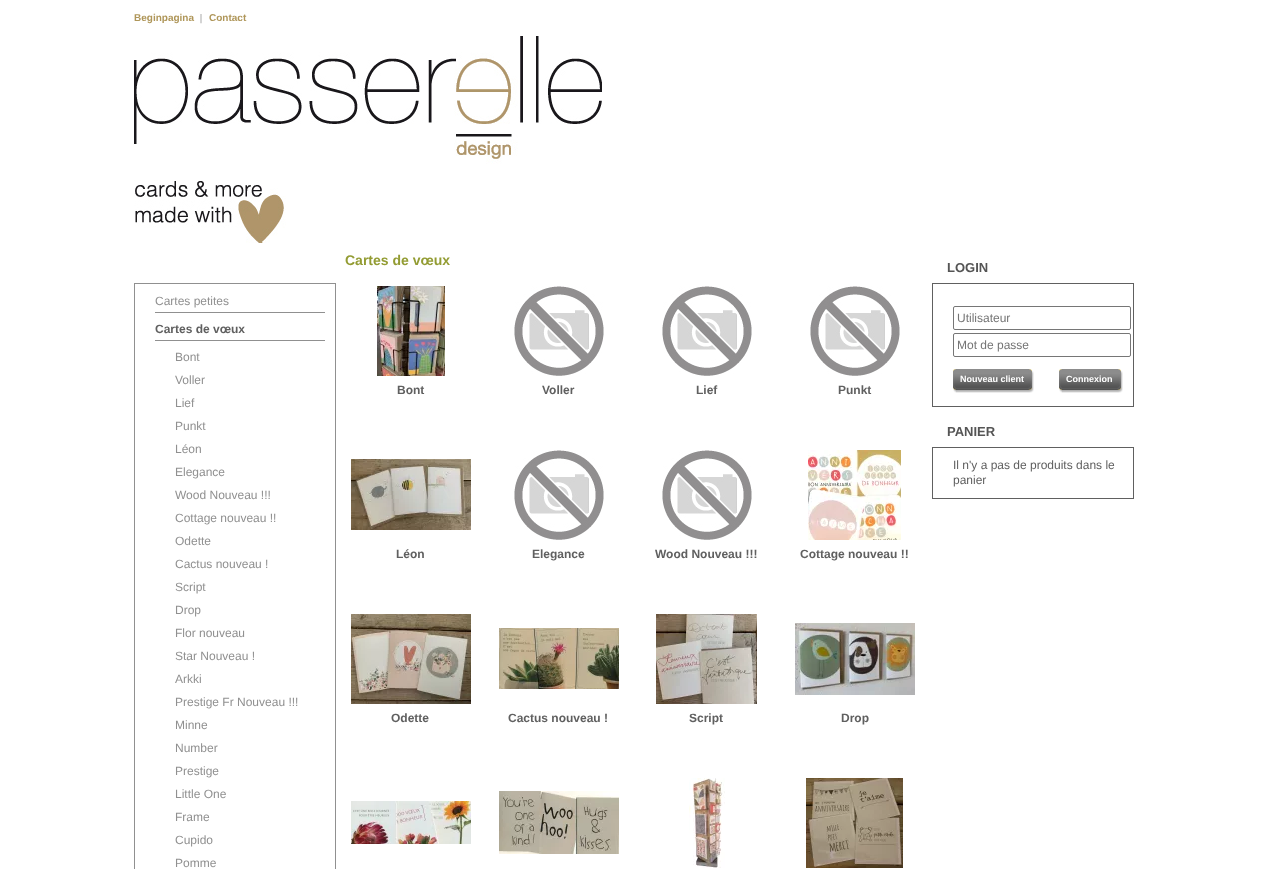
(async () => {
  const canvas = document.querySelector("canvas");
  canvas.width = 1267;
  canvas.height = 869;
  const ctx = canvas.getContext("2d");
  ctx.miterLimit = 4;
  ctx.fontKerning = "normal";
  async function loadImage(src) {
    const img = new Image();
    img.src = src;
    await img.decode();
    return img;
  }

  ctx.fillStyle = "#ffffff";
  ctx.fillRect(0, 0, 1267, 869);
  ctx.drawImage(await loadImage("img/1.png"), 134, 36, 468, 207);
  ctx.strokeStyle = "#909090";
  ctx.strokeRect(134.5, 283.5, 201, 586);
  ctx.fillStyle = "#909090";
  ctx.fillRect(155, 312, 170, 1);
  ctx.fillRect(155, 340, 170, 1);
  ctx.drawImage(await loadImage("img/2.png"), 377, 286, 68, 90);
  ctx.drawImage(await loadImage("img/3.png"), 514, 286, 90, 90);
  ctx.drawImage(await loadImage("img/3.png"), 662, 286, 90, 90);
  ctx.drawImage(await loadImage("img/3.png"), 810, 286, 90, 90);
  ctx.drawImage(await loadImage("img/4.png"), 351, 459, 120, 71);
  ctx.drawImage(await loadImage("img/3.png"), 514, 450, 90, 90);
  ctx.drawImage(await loadImage("img/3.png"), 662, 450, 90, 90);
  ctx.drawImage(await loadImage("img/5.png"), 808, 450, 93, 90);
  ctx.drawImage(await loadImage("img/6.png"), 351, 614, 120, 90);
  ctx.drawImage(await loadImage("img/7.png"), 499, 628, 120, 61);
  ctx.drawImage(await loadImage("img/8.png"), 656, 614, 101, 90);
  ctx.drawImage(await loadImage("img/9.png"), 795, 623, 120, 72);
  ctx.drawImage(await loadImage("img/10.png"), 351, 801, 120, 43);
  ctx.drawImage(await loadImage("img/11.png"), 499, 791, 120, 63);
  ctx.drawImage(await loadImage("img/12.png"), 689, 778, 36, 90);
  ctx.drawImage(await loadImage("img/13.png"), 806, 778, 97, 90);
  ctx.strokeStyle = "#606060";
  ctx.strokeRect(932.5, 283.5, 201, 123);
  ctx.beginPath();
  ctx.roundRect(953.5, 306.5, 177, 23, 1.5);
  ctx.strokeStyle = "#767676";
  ctx.stroke();
  ctx.beginPath();
  ctx.roundRect(953.5, 333.5, 177, 23, 1.5);
  ctx.stroke();
  ctx.drawImage(await loadImage("img/14.png"), 953, 369, 3, 24);
  ctx.drawImage(await loadImage("img/15.png"), 956, 369, 72, 24);
  ctx.drawImage(await loadImage("img/16.png"), 1028, 369, 6, 24);
  ctx.drawImage(await loadImage("img/14.png"), 1059, 369, 3, 24);
  ctx.drawImage(await loadImage("img/17.png"), 1062, 369, 55, 24);
  ctx.drawImage(await loadImage("img/16.png"), 1117, 369, 6, 24);
  ctx.strokeStyle = "#606060";
  ctx.strokeRect(932.5, 447.5, 201, 51);
  ctx.font = "bold 10px Liberation Sans";
  ctx.fillStyle = "#af9659";
  ctx.fillText("Beginpagina", 134, 21);
  ctx.font = "10px Liberation Serif";
  ctx.fillStyle = "#606060";
  ctx.fillText("|", 200, 21);
  ctx.font = "bold 10px Liberation Sans";
  ctx.fillStyle = "#af9659";
  ctx.fillText("Contact", 209, 21);
  ctx.font = "12px Liberation Sans";
  ctx.fillStyle = "#909090";
  ctx.fillText("Cartes petites", 155, 305);
  ctx.font = "bold 12px Liberation Sans";
  ctx.fillStyle = "#606060";
  ctx.fillText("Cartes de vœux", 155, 333);
  ctx.font = "12px Liberation Sans";
  ctx.fillStyle = "#909090";
  for (const [text, x, y] of [
    ["Bont", 175, 361],
    ["Voller", 175, 384],
    ["Lief", 175, 407],
    ["Punkt", 175, 430],
    ["Léon", 175, 453],
    ["Elegance", 175, 476],
    ["Wood Nouveau !!!", 175, 499],
    ["Cottage nouveau !!", 175, 522],
    ["Odette", 175, 545],
    ["Cactus nouveau !", 175, 568],
    ["Script", 175, 591],
    ["Drop", 175, 614],
    ["Flor nouveau", 175, 637],
    ["Star Nouveau !", 175, 660],
    ["Arkki", 175, 683],
    ["Prestige Fr Nouveau !!!", 175, 706],
    ["Minne", 175, 729],
    ["Number", 175, 752],
    ["Prestige", 175, 775],
    ["Little One", 175, 798],
    ["Frame", 175, 821],
    ["Cupido", 175, 844],
    ["Pomme", 175, 867],
  ]) {
    ctx.fillText(text, x, y);
  }
  ctx.font = "bold 14px Liberation Sans";
  ctx.fillStyle = "#939c33";
  ctx.fillText("Cartes de vœux", 345, 265);
  ctx.font = "bold 12px Liberation Sans";
  ctx.fillStyle = "#606060";
  for (const [text, x, y] of [
    ["Bont", 397, 394],
    ["Voller", 542, 394],
    ["Lief", 696, 394],
    ["Punkt", 838, 394],
    ["Léon", 396, 558],
    ["Elegance", 532, 558],
    ["Wood Nouveau !!!", 655, 558],
    ["Cottage nouveau !!", 800, 558],
    ["Odette", 391, 722],
    ["Cactus nouveau !", 508, 722],
    ["Script", 689, 722],
    ["Drop", 841, 722],
  ]) {
    ctx.fillText(text, x, y);
  }
  ctx.font = "bold 13px Liberation Sans";
  ctx.fillStyle = "#555555";
  ctx.fillText("LOGIN", 947, 272);
  ctx.font = "12px Liberation Sans";
  ctx.fillStyle = "#757575";
  ctx.fillText("Utilisateur", 957, 322);
  ctx.fillText("Mot de passe", 957, 349);
  ctx.font = "bold 9px Liberation Sans";
  ctx.fillStyle = "#ffffff";
  ctx.fillText("Nouveau client", 960, 382);
  ctx.fillText("Connexion", 1066, 382);
  ctx.font = "bold 13px Liberation Sans";
  ctx.fillStyle = "#555555";
  ctx.fillText("PANIER", 947, 436);
  ctx.font = "12px Liberation Sans";
  ctx.fillStyle = "#606060";
  ctx.fillText("Il n'y a pas de produits dans le", 953, 469);
  ctx.fillText("panier", 953, 484);
})();
